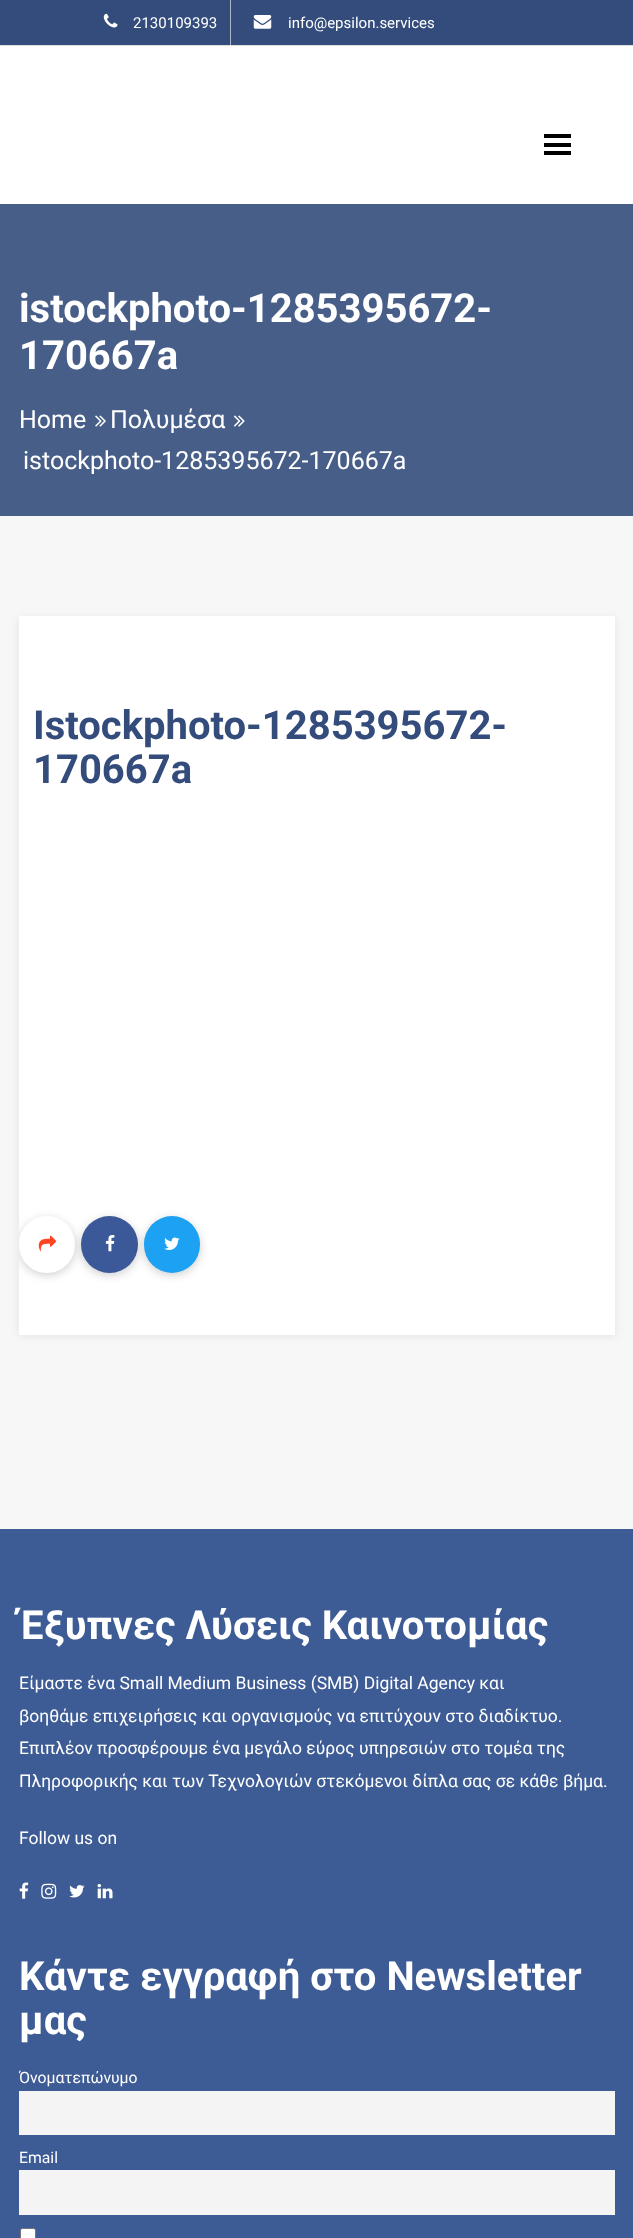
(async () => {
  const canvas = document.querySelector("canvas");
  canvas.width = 633;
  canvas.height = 2238;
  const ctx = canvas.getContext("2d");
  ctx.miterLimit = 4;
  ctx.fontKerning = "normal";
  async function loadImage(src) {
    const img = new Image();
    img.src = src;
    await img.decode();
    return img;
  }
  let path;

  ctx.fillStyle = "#ffffff";
  ctx.fillRect(0, 0, 633, 2238);
  ctx.fillStyle = "#334c7c";
  ctx.fillRect(0, 0, 633, 45);
  ctx.fillStyle = "#adb7cb";
  ctx.fillRect(230, 0, 1, 45);
  ctx.drawImage(await loadImage("img/1.png"), 103, 13, 15, 15);
  ctx.drawImage(await loadImage("img/2.png"), 253, 15, 19, 14);
  for (const [x, y, w, h, color] of [
    [0, 45, 633, 1, "#dddddd"],
    [544, 134, 27, 4, "#000000"],
    [544, 143, 27, 4, "#000000"],
    [544, 151, 27, 4, "#000000"],
    [0, 204, 633, 312, "#475e89"],
  ]) {
    ctx.fillStyle = color;
    ctx.fillRect(x, y, w, h);
  }
  ctx.drawImage(await loadImage("img/3.png"), 95, 415, 11, 12);
  ctx.drawImage(await loadImage("img/4.png"), 233, 415, 12, 12);
  ctx.fillStyle = "#f7f7f7";
  ctx.fillRect(0, 516, 633, 1013);
  ctx.fillStyle = "rgba(0, 0, 0, 0.08)";
  ctx.filter = "blur(5px)";
  ctx.beginPath();
  ctx.rect(19, 618, 596, 718);
  ctx.fill();
  ctx.filter = "none";
  ctx.fillStyle = "#ffffff";
  ctx.fillRect(19, 616, 596, 719);
  ctx.save();
  ctx.beginPath();
  ctx.rect(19, 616, 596, 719);
  ctx.clip();
  path = new Path2D("M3 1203H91V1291H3ZM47 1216C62.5 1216 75 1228.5 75 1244V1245C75 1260.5 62.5 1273 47 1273C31.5 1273 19 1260.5 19 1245V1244C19 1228.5 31.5 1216 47 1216Z");
  ctx.clip(path, "evenodd");
  ctx.fillStyle = "rgba(0, 0, 0, 0.2)";
  ctx.filter = "blur(5px)";
  ctx.beginPath();
  ctx.roundRect(19, 1219, 56, 56, 28);
  ctx.fill();
  ctx.filter = "none";
  ctx.restore();
  ctx.drawImage(await loadImage("img/5.png"), 38, 1235, 19, 17);
  ctx.fillStyle = "rgba(0, 0, 0, 0.2)";
  ctx.filter = "blur(5px)";
  ctx.beginPath();
  ctx.roundRect(81, 1219, 57, 56, 28);
  ctx.fill();
  ctx.filter = "none";
  ctx.fillStyle = "#3b5998";
  ctx.beginPath();
  ctx.arc(109.5, 1244.5, 28.5, 0, Math.PI * 2);
  ctx.fill();
  ctx.drawImage(await loadImage("img/6.png"), 105, 1235, 10, 17);
  ctx.fillStyle = "rgba(0, 0, 0, 0.2)";
  ctx.filter = "blur(5px)";
  ctx.beginPath();
  ctx.roundRect(144, 1219, 56, 56, 28);
  ctx.fill();
  ctx.filter = "none";
  ctx.fillStyle = "#1da1f2";
  ctx.beginPath();
  ctx.roundRect(144, 1216, 56, 57, 28);
  ctx.fill();
  ctx.drawImage(await loadImage("img/7.png"), 164, 1237, 16, 13);
  ctx.fillStyle = "#3d5b94";
  ctx.fillRect(0, 1529, 633, 709);
  ctx.drawImage(await loadImage("img/8.png"), 19, 1882, 10, 17);
  ctx.drawImage(await loadImage("img/9.png"), 41, 1883, 16, 16);
  ctx.drawImage(await loadImage("img/10.png"), 69, 1885, 16, 13);
  ctx.drawImage(await loadImage("img/11.png"), 97, 1884, 16, 15);
  ctx.fillStyle = "#f4f4f4";
  ctx.fillRect(19, 2091, 596, 44);
  ctx.fillRect(19, 2170, 596, 45);
  ctx.fillStyle = "#ffffff";
  ctx.beginPath();
  ctx.roundRect(20.5, 2228.5, 15, 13, 2);
  ctx.fill();
  ctx.strokeStyle = "#767676";
  ctx.stroke();
  ctx.font = "15px Roboto";
  ctx.fillText("2130109393", 133, 28);
  ctx.fillText("info@epsilon.services", 288, 28);
  ctx.font = "bold 40px Roboto";
  ctx.fillText("istockphoto-1285395672-", 19, 322);
  ctx.fillText("170667a", 19, 369);
  ctx.font = "25px Roboto";
  for (const [text, x, y] of [
    ["Home", 19, 428],
    ["Πολυμέσα", 110, 428],
    ["istockphoto-1285395672-170667a", 23, 469],
  ]) {
    ctx.fillText(text, x, y);
  }
  ctx.font = "bold 40px Roboto";
  ctx.fillStyle = "#334c7c";
  ctx.fillText("Istockphoto-1285395672-", 33, 739);
  ctx.fillText("170667a", 33, 783);
  ctx.fillStyle = "#ffffff";
  ctx.fillText("Έξυπνες Λύσεις Καινοτομίας", 19, 1639);
  ctx.font = "17.5px Roboto";
  for (const [text, x, y] of [
    ["Είμαστε ένα Small Medium Business (SMB) Digital Agency και", 19, 1689],
    ["βοηθάμε επιχειρήσεις και οργανισμούς να επιτύχουν στο διαδίκτυο.", 19, 1722],
    ["Επιπλέον προσφέρουμε ένα μεγάλο εύρος υπηρεσιών στο τομέα της", 19, 1754],
    ["Πληροφορικής και των Τεχνολογιών στεκόμενοι δίπλα σας σε κάθε βήμα.", 19, 1787],
    ["Follow us on", 19, 1844],
  ]) {
    ctx.fillText(text, x, y);
  }
  ctx.font = "bold 40px Roboto";
  ctx.fillText("Κάντε εγγραφή στο Newsletter", 19, 1990);
  ctx.fillText("μας", 19, 2034);
  ctx.font = "15.75px Roboto";
  ctx.fillText("Όνοματεπώνυμο", 19, 2083);
  ctx.fillText("Email", 19, 2163);
})();
